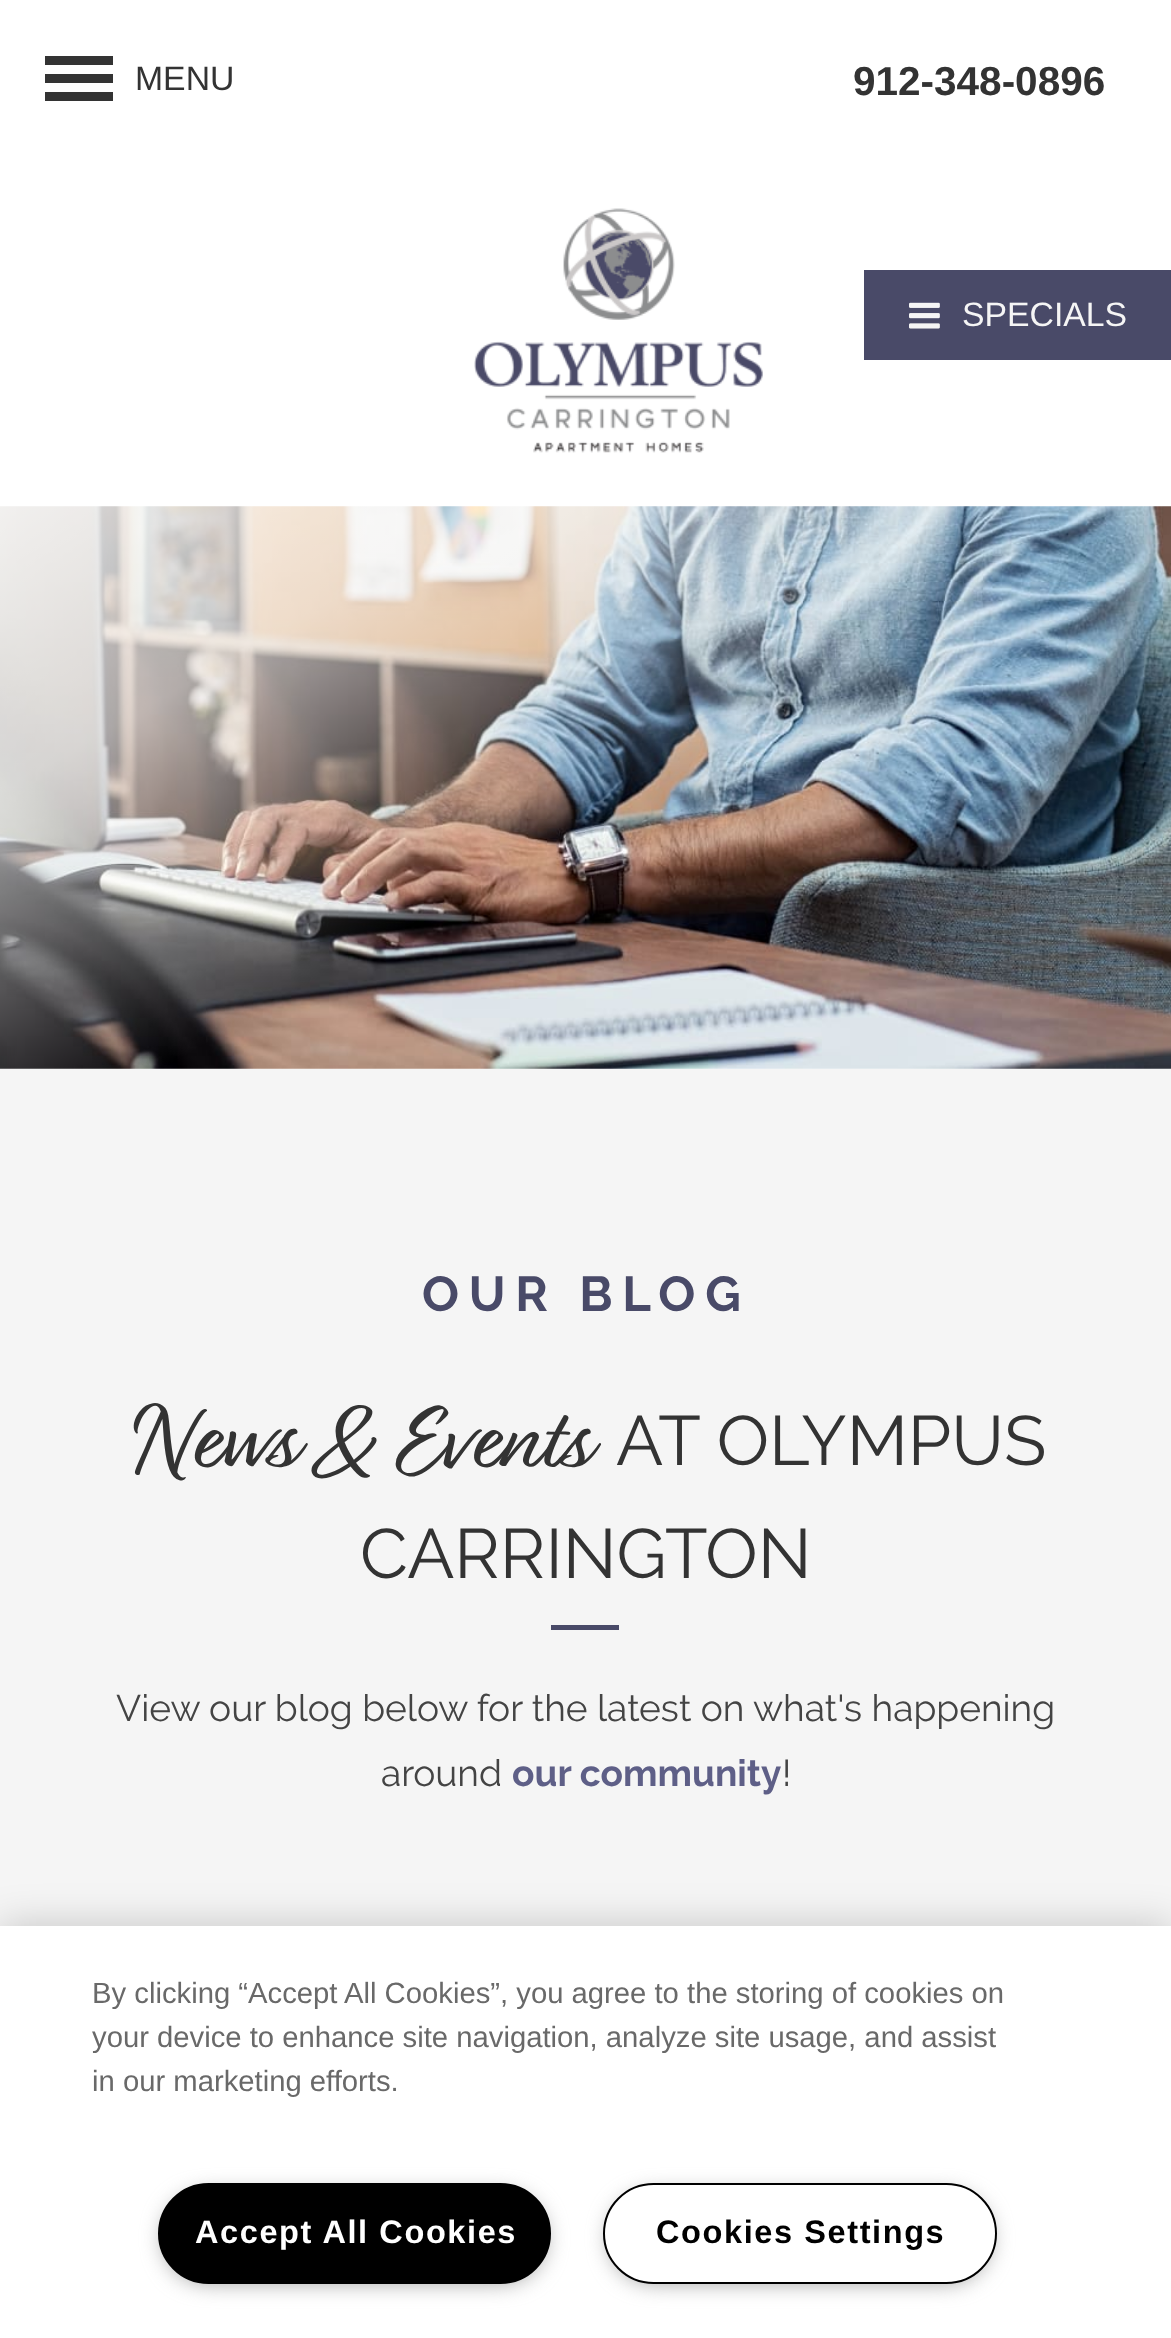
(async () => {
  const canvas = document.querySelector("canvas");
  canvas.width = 1171;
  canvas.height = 2338;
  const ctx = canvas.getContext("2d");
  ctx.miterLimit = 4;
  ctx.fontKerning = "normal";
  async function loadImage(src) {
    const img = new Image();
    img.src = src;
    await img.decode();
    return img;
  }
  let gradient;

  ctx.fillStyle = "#ffffff";
  ctx.fillRect(0, 0, 1171, 2338);
  for (const [x, y, w, h, color] of [
    [45, 56, 68, 9, "#333333"],
    [45, 74, 68, 9, "#333333"],
    [45, 92, 68, 9, "#333333"],
  ]) {
    ctx.fillStyle = color;
    ctx.fillRect(x, y, w, h);
  }
  ctx.drawImage(await loadImage("img/1.png"), 474, 208, 289, 245);
  ctx.fillStyle = "#494a68";
  ctx.fillRect(864, 270, 307, 90);
  ctx.drawImage(await loadImage("img/2.png"), 909, 302, 31, 27);
  ctx.drawImage(await loadImage("img/3.png"), 0, 506, 1171, 563);
  gradient = ctx.createLinearGradient(318, 323, 854, 1252);
  gradient.addColorStop(0, "rgba(255, 255, 255, 0.85)");
  gradient.addColorStop(0.23, "rgba(255, 255, 255, 0.64)");
  gradient.addColorStop(0.53, "rgba(255, 255, 255, 0)");
  ctx.fillStyle = gradient;
  ctx.fillRect(0, 506, 1113, 563);
  ctx.fillStyle = "#f5f5f5";
  ctx.fillRect(0, 1069, 1171, 857);
  ctx.fillStyle = "#494a68";
  ctx.fillRect(551, 1625, 68, 5);
  ctx.fillStyle = "rgba(0, 0, 0, 0.2)";
  ctx.filter = "blur(20px)";
  ctx.beginPath();
  ctx.rect(0, 1926, 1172, 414);
  ctx.fill();
  ctx.filter = "none";
  ctx.fillStyle = "#ffffff";
  ctx.fillRect(0, 1926, 1171, 412);
  ctx.fillStyle = "#999999";
  ctx.filter = "blur(11px)";
  ctx.beginPath();
  ctx.roundRect(164, 2194, 381, 88, 44);
  ctx.fill();
  ctx.filter = "none";
  ctx.fillStyle = "#000000";
  ctx.beginPath();
  ctx.roundRect(159, 2184, 391, 99, 49.5);
  ctx.fill();
  ctx.strokeStyle = "#000000";
  ctx.lineWidth = 2;
  ctx.stroke();
  ctx.fillStyle = "#999999";
  ctx.filter = "blur(11px)";
  ctx.beginPath();
  ctx.roundRect(610, 2194, 380, 88, 44);
  ctx.fill();
  ctx.filter = "none";
  ctx.fillStyle = "#ffffff";
  ctx.beginPath();
  ctx.roundRect(604, 2184, 392, 99, 49.5);
  ctx.fill();
  ctx.stroke();
  ctx.font = "33.75px Liberation Sans";
  ctx.fillStyle = "#333333";
  ctx.fillText("MENU", 135, 90);
  ctx.font = "bold 40.5px Liberation Sans";
  ctx.fillText("912-348-0896", 853, 95);
  ctx.font = "33.75px Liberation Sans";
  ctx.fillStyle = "#f5f5f5";
  ctx.fillText("SPECIALS", 962, 326);
  ctx.letterSpacing = "9.75px";
  ctx.font = "bold 49px Raleway";
  ctx.fillStyle = "#494a68";
  ctx.fillText("OUR BLOG", 422, 1311);
  ctx.letterSpacing = "0px";
  ctx.font = "94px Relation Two";
  ctx.fillStyle = "#333333";
  ctx.fillText("News & Events", 135, 1465);
  ctx.font = "69.75px Raleway";
  ctx.fillText("AT OLYMPUS", 616, 1465);
  ctx.fillText("CARRINGTON", 360, 1578);
  ctx.font = "37.1px Raleway";
  ctx.fillStyle = "#444444";
  ctx.fillText("View our blog below for the latest on what's happening", 116, 1721);
  ctx.fillText("around", 381, 1786);
  ctx.font = "bold 37.1px Raleway";
  ctx.fillStyle = "#5e5f87";
  ctx.fillText("our community", 512, 1786);
  ctx.font = "37.1px Raleway";
  ctx.fillStyle = "#444444";
  ctx.fillText("!", 782, 1786);
  ctx.font = "29.25px Liberation Sans";
  ctx.fillStyle = "#696969";
  for (const [text, x, y] of [
    ["By clicking “Accept All Cookies”, you agree to the storing of cookies on", 92, 2003],
    ["your device to enhance site navigation, analyze site usage, and assist", 92, 2047],
    ["in our marketing efforts.", 92, 2091],
  ]) {
    ctx.fillText(text, x, y);
  }
  ctx.letterSpacing = "1.6px";
  ctx.font = "bold 32.5px Liberation Sans";
  ctx.fillStyle = "#ffffff";
  ctx.fillText("Accept All Cookies", 195, 2243);
  ctx.fillStyle = "#000000";
  ctx.fillText("Cookies Settings", 656, 2243);
})();
